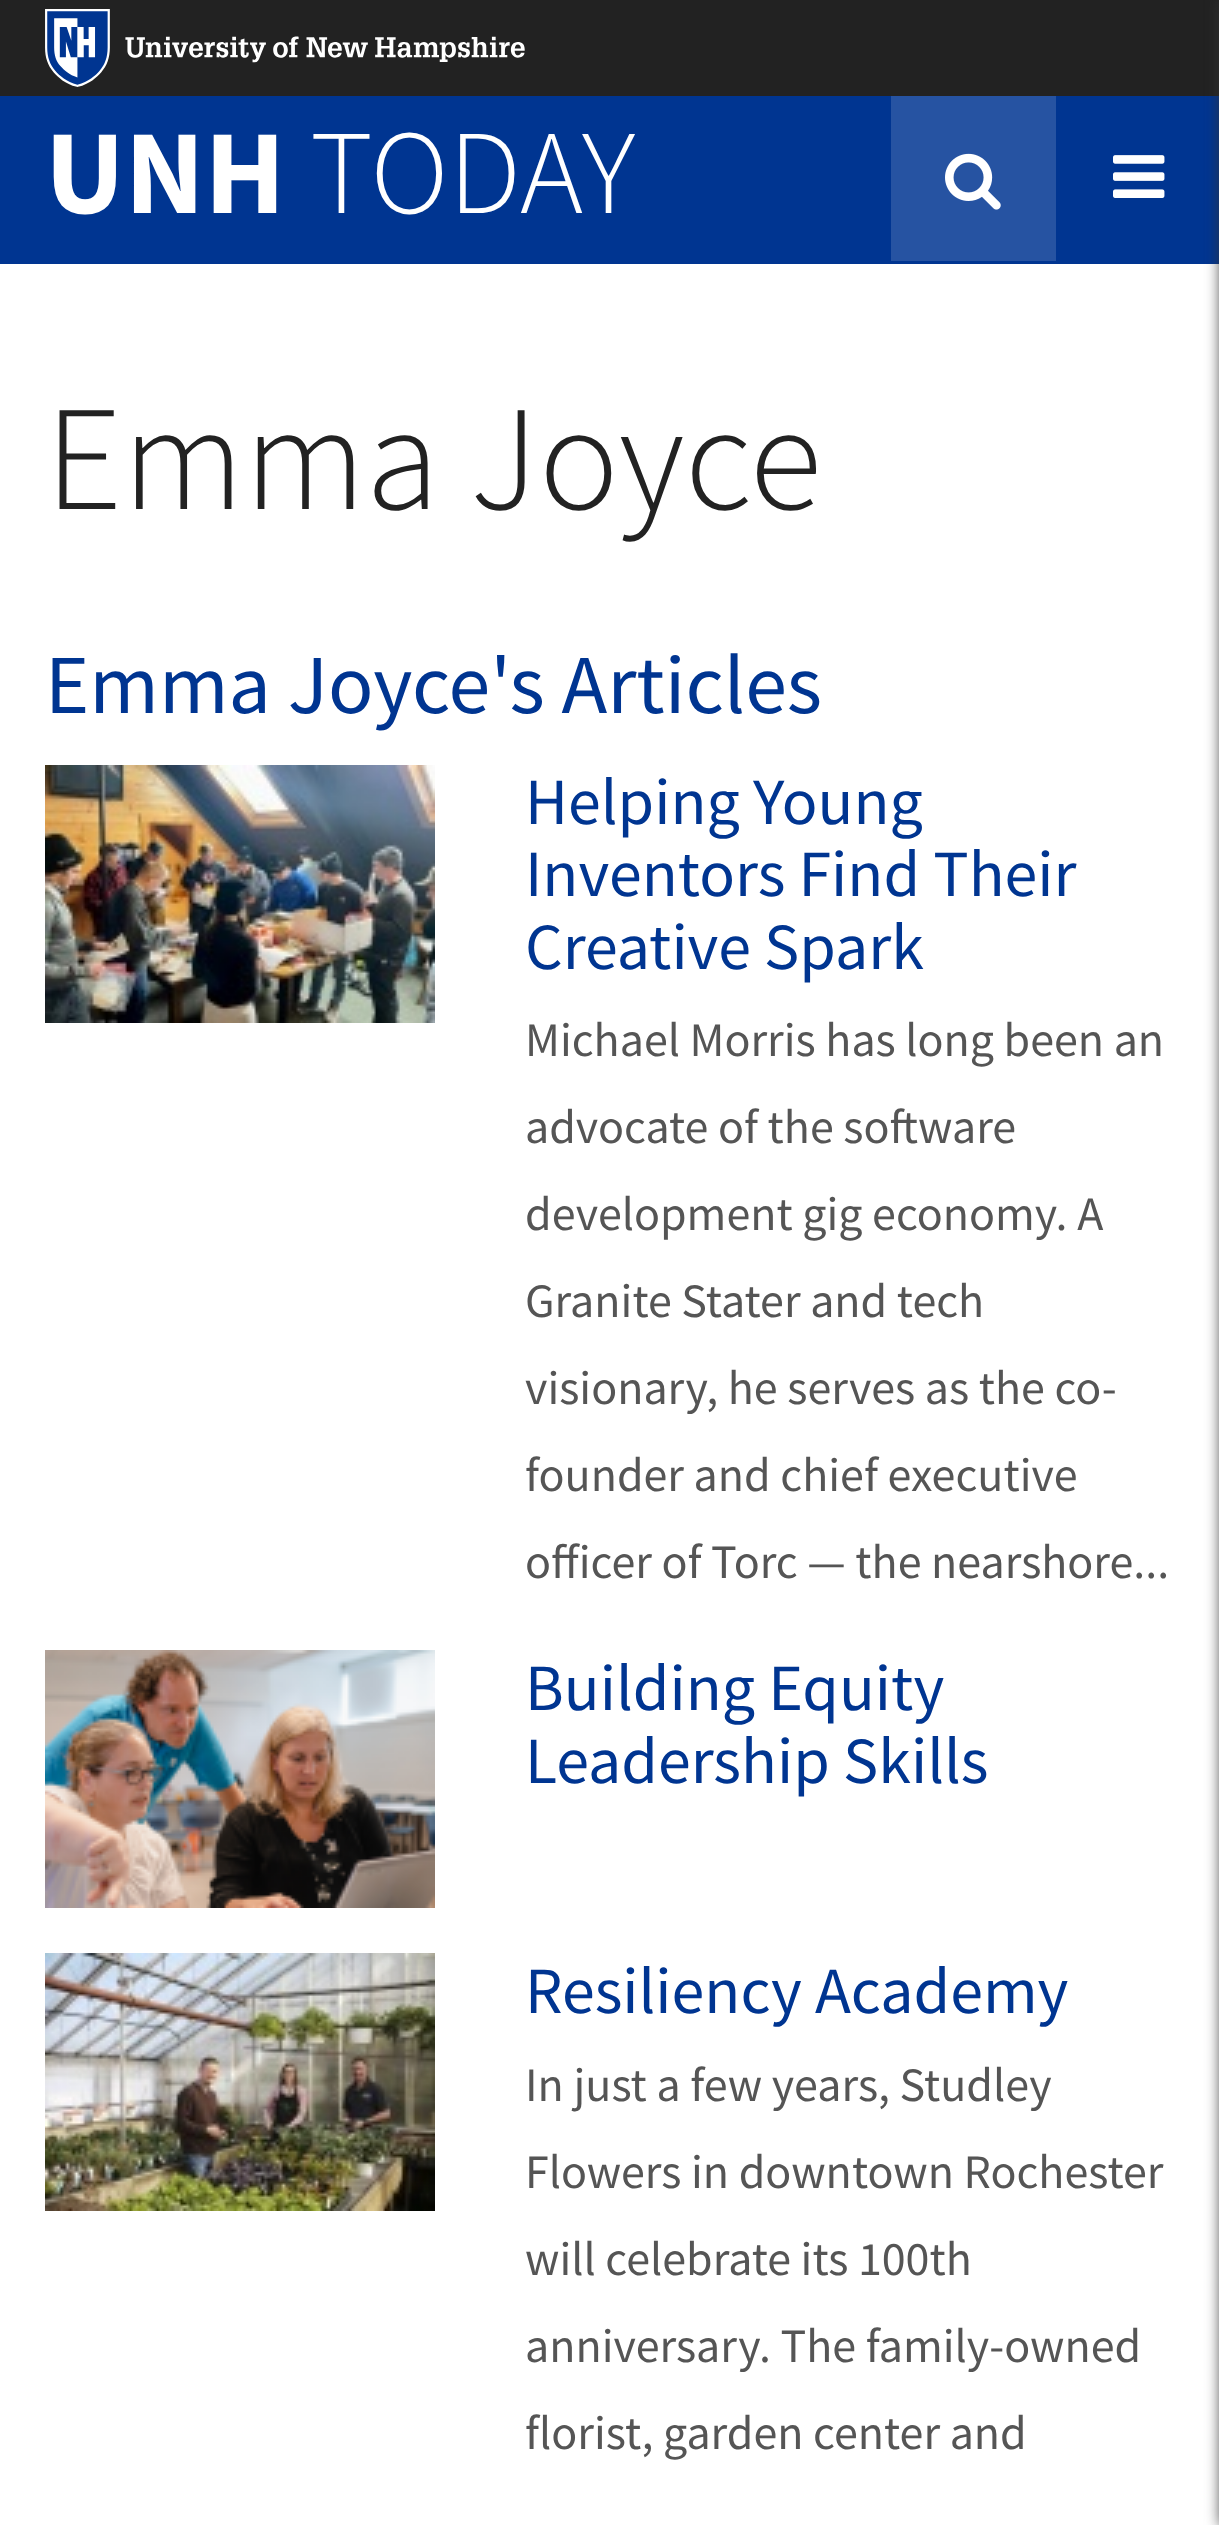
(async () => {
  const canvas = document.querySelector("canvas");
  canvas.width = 1219;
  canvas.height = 2525;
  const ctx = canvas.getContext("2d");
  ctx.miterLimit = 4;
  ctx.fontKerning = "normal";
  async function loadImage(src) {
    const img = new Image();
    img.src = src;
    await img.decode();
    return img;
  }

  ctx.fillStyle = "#222222";
  ctx.fillRect(0, 0, 1219, 2525);
  ctx.drawImage(await loadImage("img/1.png"), 45, 9, 480, 78);
  ctx.fillStyle = "#003591";
  ctx.fillRect(0, 96, 1219, 168);
  ctx.fillStyle = "#2653a2";
  ctx.fillRect(891, 96, 165, 165);
  ctx.drawImage(await loadImage("img/2.png"), 945, 153, 56, 57);
  ctx.drawImage(await loadImage("img/3.png"), 1113, 155, 52, 43);
  ctx.fillStyle = "#ffffff";
  ctx.fillRect(0, 264, 1219, 2261);
  ctx.drawImage(await loadImage("img/4.png"), 45, 765, 390, 258);
  ctx.drawImage(await loadImage("img/5.png"), 45, 1650, 390, 258);
  ctx.drawImage(await loadImage("img/6.png"), 45, 1953, 390, 258);
  ctx.fillStyle = "#333333";
  ctx.filter = "blur(7.5px)";
  ctx.beginPath();
  ctx.rect(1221, 0, 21, 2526);
  ctx.fill();
  ctx.filter = "none";
  ctx.font = "bold 120px Source Sans Pro";
  ctx.fillStyle = "#ffffff";
  ctx.fillText("UNH", 45, 213);
  ctx.font = "300 120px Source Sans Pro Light";
  ctx.fillText("TODAY", 310, 213);
  ctx.font = "300 150px Source Sans Pro Light";
  ctx.fillStyle = "#222222";
  ctx.fillText("Emma Joyce", 45, 509);
  ctx.font = "84px Source Sans Pro";
  ctx.fillStyle = "#003591";
  ctx.fillText("Emma Joyce's Articles", 45, 713);
  ctx.font = "66px Source Sans Pro";
  for (const [text, x, y] of [
    ["Helping Young", 525, 824],
    ["Inventors Find Their", 525, 896],
    ["Creative Spark", 525, 969],
  ]) {
    ctx.fillText(text, x, y);
  }
  ctx.font = "48px Source Sans Pro";
  ctx.fillStyle = "#555555";
  for (const [text, x, y] of [
    ["Michael Morris has long been an", 525, 1056],
    ["advocate of the software", 525, 1143],
    ["development gig economy. A", 525, 1230],
    ["Granite Stater and tech", 525, 1317],
    ["visionary, he serves as the co-", 525, 1404],
    ["founder and chief executive", 525, 1491],
    ["officer of Torc — the nearshore...", 525, 1578],
  ]) {
    ctx.fillText(text, x, y);
  }
  ctx.font = "66px Source Sans Pro";
  ctx.fillStyle = "#003591";
  for (const [text, x, y] of [
    ["Building Equity", 525, 1710],
    ["Leadership Skills", 525, 1783],
    ["Resiliency Academy", 525, 2013],
  ]) {
    ctx.fillText(text, x, y);
  }
  ctx.font = "48px Source Sans Pro";
  ctx.fillStyle = "#555555";
  for (const [text, x, y] of [
    ["In just a few years, Studley", 525, 2101],
    ["Flowers in downtown Rochester", 525, 2188],
    ["will celebrate its 100th", 525, 2275],
    ["anniversary. The family-owned", 525, 2362],
    ["florist, garden center and", 525, 2449],
  ]) {
    ctx.fillText(text, x, y);
  }
})();
